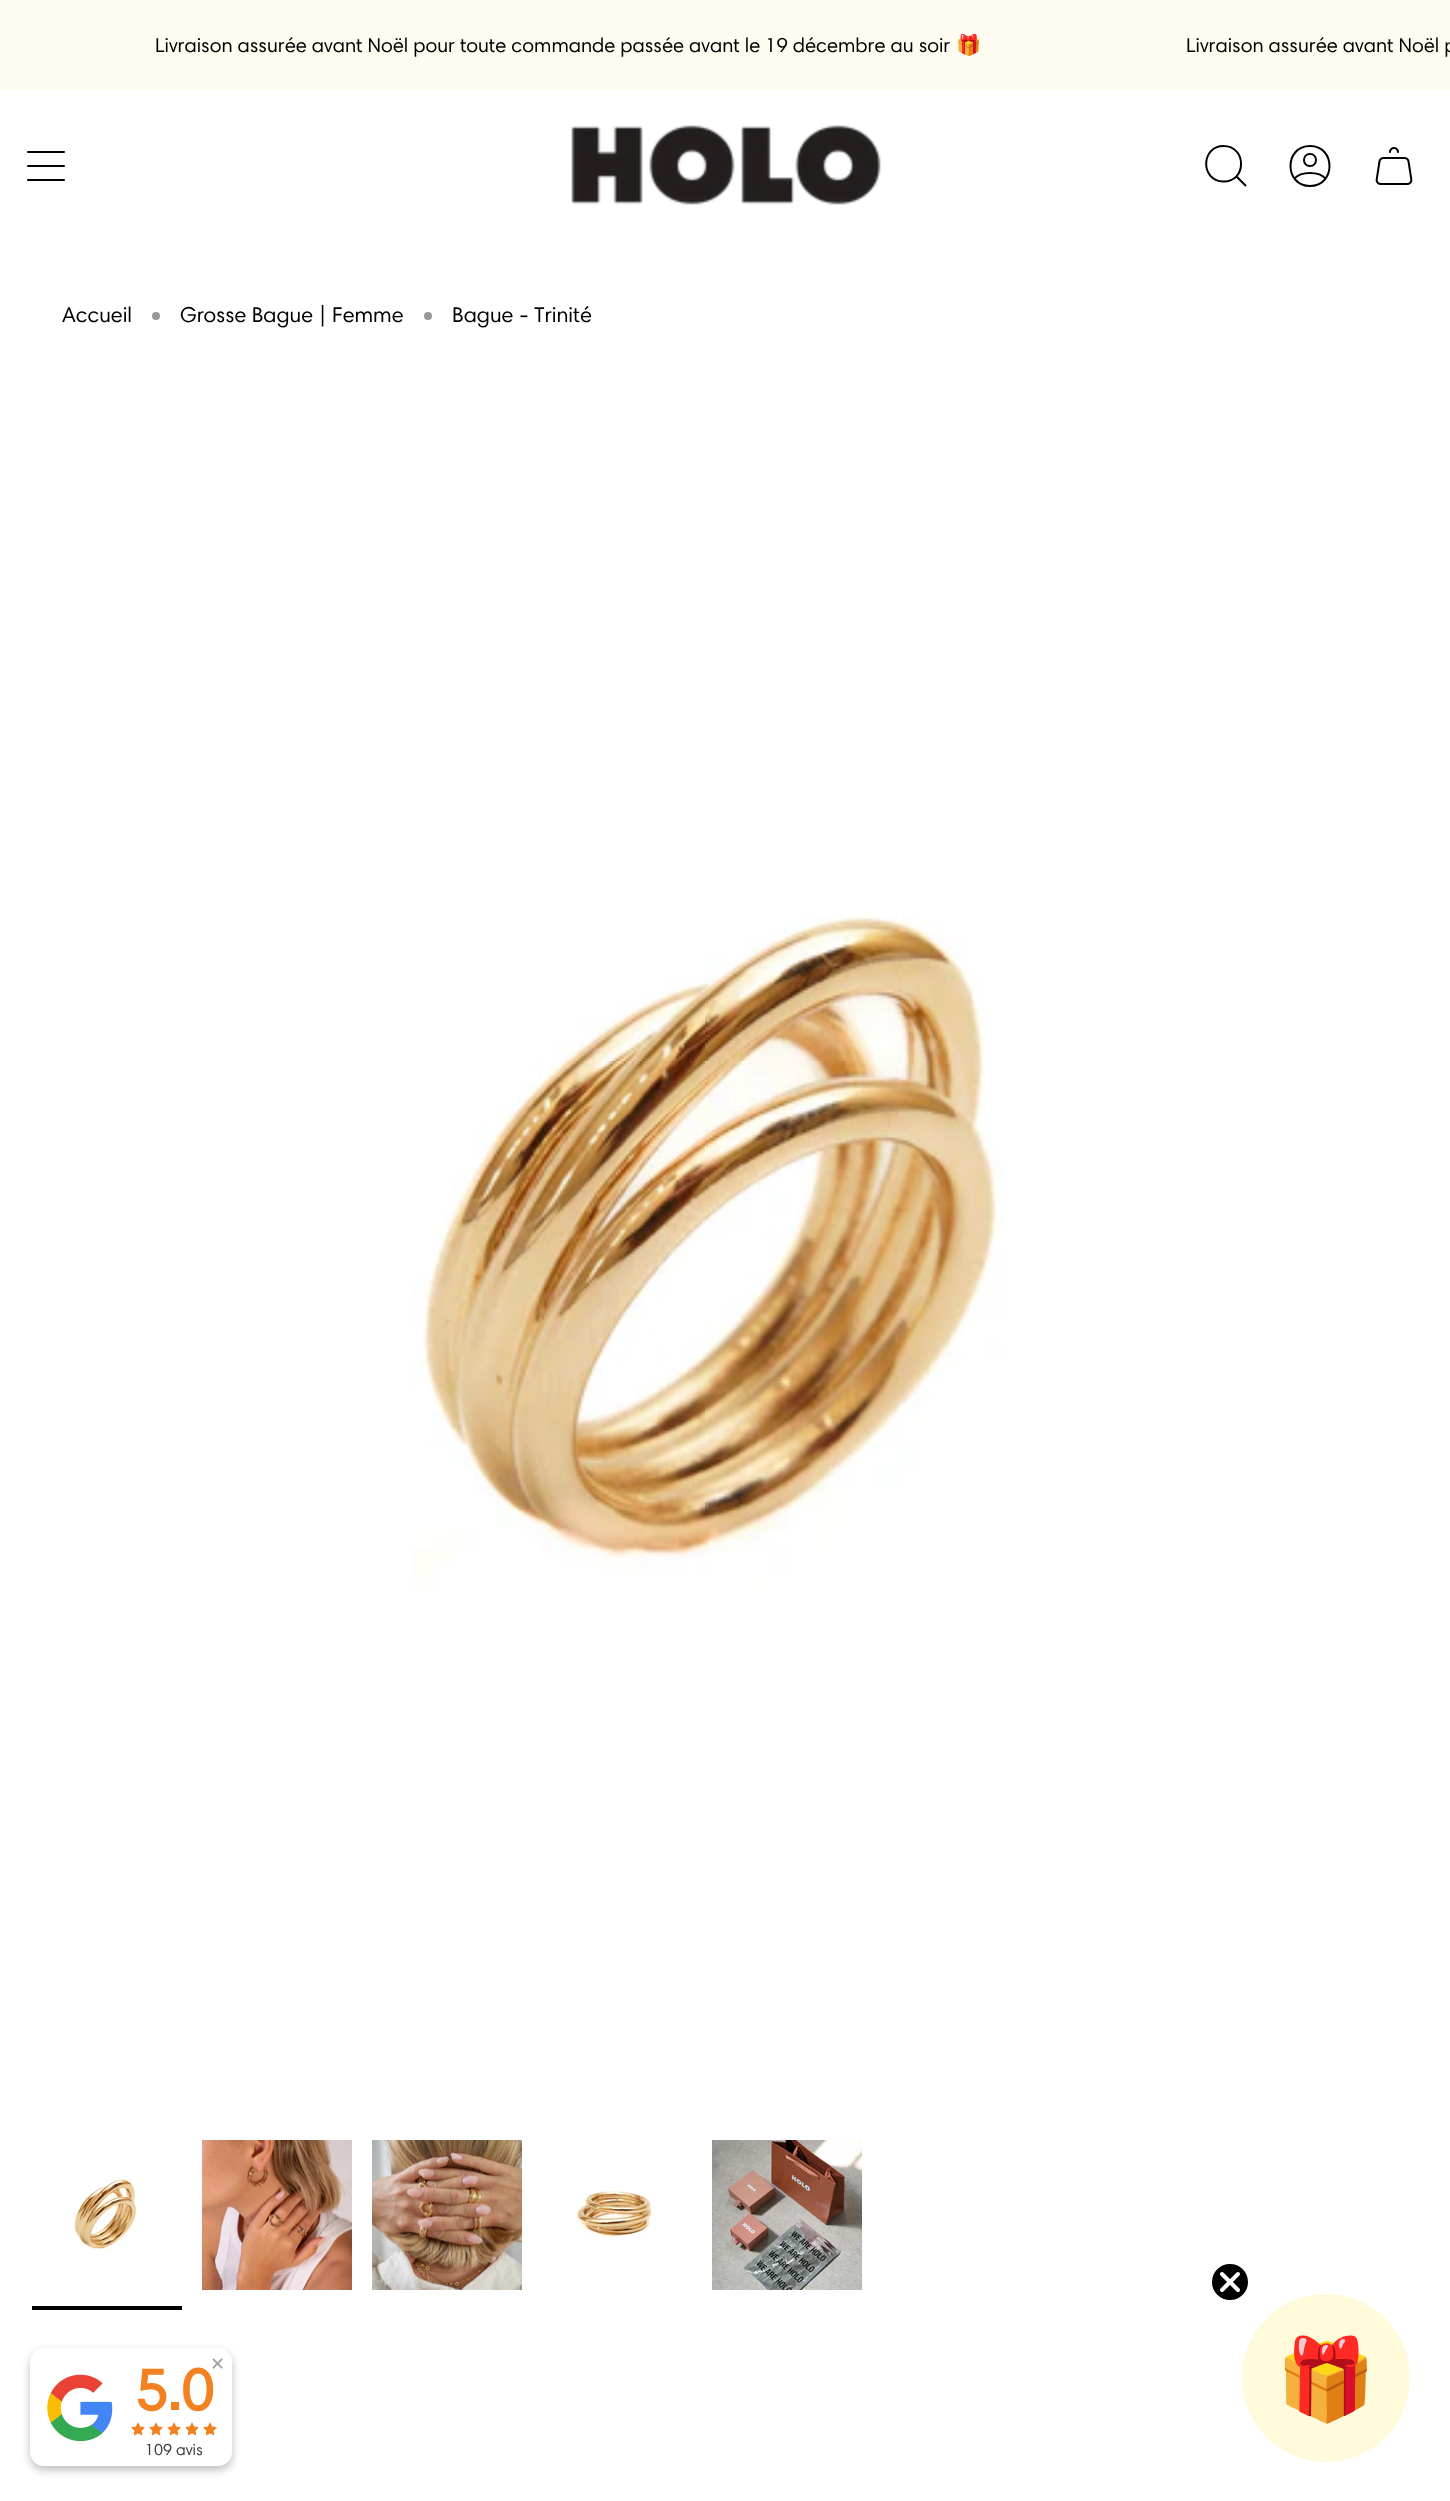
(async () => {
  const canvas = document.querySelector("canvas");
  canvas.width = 1450;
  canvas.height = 2501;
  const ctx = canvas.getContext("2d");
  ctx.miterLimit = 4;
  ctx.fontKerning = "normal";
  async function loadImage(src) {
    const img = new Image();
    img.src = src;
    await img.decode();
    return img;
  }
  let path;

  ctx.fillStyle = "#ffffff";
  ctx.fillRect(0, 0, 1450, 2501);
  ctx.fillStyle = "#fefbf1";
  ctx.fillRect(0, 0, 1450, 90);
  path = new Path2D("M28 152H64M28 166H64M28 180H64");
  ctx.strokeStyle = "#000000";
  ctx.lineWidth = 2;
  ctx.lineCap = "round";
  ctx.lineJoin = "round";
  ctx.stroke(path);
  ctx.drawImage(await loadImage("img/1.png"), 571, 125, 310, 80);
  path = new Path2D("M1223.5 146C1247 146 1247 182.5 1223 181.5C1200 180.5 1201 146 1223.5 146ZM1236 176L1246 186");
  ctx.lineCap = "butt";
  ctx.lineJoin = "miter";
  ctx.stroke(path);
  path = new Path2D("M1310 146C1284 146 1284 186 1310 186C1336 186 1336 146 1310 146ZM1294.5 178.5C1300.5 171 1319.5 171 1325.5 178.5M1310 166C1318 166 1318 154 1310 154C1302 154 1302 166 1310 166Z");
  ctx.lineCap = "round";
  ctx.lineJoin = "round";
  ctx.stroke(path);
  ctx.drawImage(await loadImage("img/2.png"), 1375, 147, 38, 38);
  ctx.fillStyle = "#999999";
  ctx.beginPath();
  ctx.arc(156, 316, 4, 0, Math.PI * 2);
  ctx.fill();
  ctx.beginPath();
  ctx.arc(428, 316, 4, 0, Math.PI * 2);
  ctx.fill();
  ctx.drawImage(await loadImage("img/3.png"), 412, 915, 592, 678);
  ctx.drawImage(await loadImage("img/4.png"), 73, 2178, 64, 72);
  ctx.fillStyle = "#000000";
  ctx.fillRect(32, 2306, 150, 4);
  ctx.drawImage(await loadImage("img/5.png"), 202, 2140, 150, 150);
  ctx.drawImage(await loadImage("img/6.png"), 372, 2140, 150, 150);
  ctx.drawImage(await loadImage("img/7.png"), 574, 2190, 78, 48);
  ctx.drawImage(await loadImage("img/8.png"), 712, 2140, 150, 150);
  ctx.fillStyle = "rgba(0, 0, 0, 0.26)";
  ctx.filter = "blur(4.5px)";
  ctx.beginPath();
  ctx.roundRect(30, 2352, 202, 118, 14);
  ctx.fill();
  ctx.filter = "none";
  ctx.fillStyle = "#ffffff";
  ctx.beginPath();
  ctx.roundRect(30, 2348, 202, 118, 14);
  ctx.fill();
  ctx.drawImage(await loadImage("img/9.png"), 47, 2374, 66, 68);
  ctx.drawImage(await loadImage("img/10.png"), 131, 2422, 14, 14);
  ctx.drawImage(await loadImage("img/10.png"), 149, 2422, 14, 14);
  ctx.drawImage(await loadImage("img/10.png"), 167, 2422, 14, 14);
  ctx.drawImage(await loadImage("img/10.png"), 185, 2422, 14, 14);
  ctx.drawImage(await loadImage("img/10.png"), 203, 2422, 14, 14);
  ctx.fillStyle = "#fffada";
  ctx.beginPath();
  ctx.arc(1326, 2378, 84, 0, Math.PI * 2);
  ctx.fill();
  ctx.fillStyle = "#000000";
  ctx.beginPath();
  ctx.arc(1230, 2282, 19, 0, Math.PI * 2);
  ctx.fill();
  ctx.strokeStyle = "#ffffff";
  ctx.stroke();
  path = new Path2D("M1222 2274L1238 2290M1222 2290L1238 2274Z");
  ctx.lineWidth = 4;
  ctx.stroke(path);
  ctx.font = "20.15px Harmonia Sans";
  ctx.fillText("Livraison assurée avant Noël pour toute commande passée avant le 19 décembre au soir", 155, 52);
  ctx.font = "20.15px Noto Color Emoji";
  ctx.fillText("🎁", 956, 52);
  ctx.font = "20.15px Harmonia Sans";
  ctx.fillText("Livraison assurée avant Noël p", 1186, 52);
  ctx.font = "21.6px Harmonia Sans";
  for (const [text, x, y] of [
    ["Accueil", 62, 322],
    ["Grosse Bague | Femme", 180, 322],
    ["Bague - Trinité", 452, 322],
  ]) {
    ctx.fillText(text, x, y);
  }
  ctx.font = "18px DejaVu Sans";
  ctx.fillStyle = "#a0a0a0";
  ctx.fillText("✕", 210, 2370);
  ctx.font = "bold 58px Harmonia Sans";
  ctx.fillStyle = "#f48120";
  ctx.fillText("5.0", 135, 2410);
  ctx.font = "16px Harmonia Sans";
  ctx.fillStyle = "#404040";
  ctx.fillText("109 avis", 145, 2455);
  ctx.font = "80px Noto Color Emoji";
  ctx.fillStyle = "#000000";
  ctx.fillText("🎁", 1276, 2407);
})();
